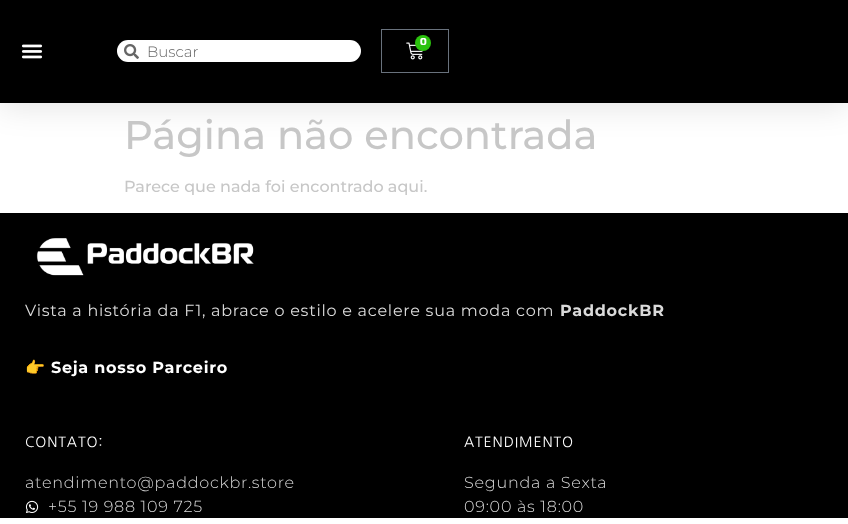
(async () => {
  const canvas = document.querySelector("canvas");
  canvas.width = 848;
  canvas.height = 524;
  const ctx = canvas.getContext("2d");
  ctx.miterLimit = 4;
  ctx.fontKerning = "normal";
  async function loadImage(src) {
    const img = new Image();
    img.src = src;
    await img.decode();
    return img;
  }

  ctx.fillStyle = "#ffffff";
  ctx.fillRect(0, 0, 848, 524);
  ctx.fillStyle = "rgba(0, 0, 0, 0.1)";
  ctx.filter = "blur(15px)";
  ctx.beginPath();
  ctx.rect(0, 4, 848, 104);
  ctx.fill();
  ctx.filter = "none";
  ctx.fillStyle = "#000000";
  ctx.fillRect(0, 0, 848, 103);
  ctx.drawImage(await loadImage("img/1.png"), 21, 44, 22, 15);
  ctx.strokeStyle = "#69727d";
  ctx.strokeRect(381.5, 29.5, 67, 43);
  ctx.drawImage(await loadImage("img/2.png"), 406, 42, 18, 18);
  ctx.fillStyle = "#2bc20e";
  ctx.beginPath();
  ctx.arc(423, 43, 8, 0, Math.PI * 2);
  ctx.fill();
  ctx.fillStyle = "#ffffff";
  ctx.beginPath();
  ctx.roundRect(117, 40, 244, 22, 11);
  ctx.fill();
  ctx.drawImage(await loadImage("img/3.png"), 124, 44, 15, 15);
  ctx.fillStyle = "#000000";
  ctx.fillRect(0, 213, 848, 305);
  ctx.drawImage(await loadImage("img/4.png"), 36, 238, 218, 38);
  ctx.drawImage(await loadImage("img/5.png"), 25, 500, 14, 13);
  ctx.font = "bold 10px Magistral";
  ctx.fillStyle = "#ffffff";
  ctx.fillText("0", 420, 45);
  ctx.font = "300 15px Montserrat";
  ctx.fillStyle = "#666666";
  ctx.fillText("Buscar", 147, 57);
  ctx.font = "500 40px Montserrat";
  ctx.fillStyle = "#c7c7c7";
  ctx.fillText("Página não encontrada", 124, 149);
  ctx.font = "500 16px Montserrat";
  ctx.fillText("Parece que nada foi encontrado aqui.", 124, 192);
  ctx.letterSpacing = "0.75px";
  ctx.font = "16px Montserrat";
  ctx.fillStyle = "#dadada";
  ctx.fillText("Vista a história da F1, abrace o estilo e acelere sua moda com", 25, 316);
  ctx.font = "bold 16px Montserrat";
  ctx.fillText("PaddockBR", 560, 316);
  ctx.font = "16px Noto Color Emoji";
  ctx.fillText("👉", 25, 373);
  ctx.font = "bold 16px Montserrat";
  ctx.fillStyle = "#ffffff";
  ctx.fillText("Seja nosso Parceiro", 51, 373);
  ctx.letterSpacing = "0.9px";
  ctx.font = "14px NanumGothic";
  ctx.fillText("CONTATO:", 25, 447);
  ctx.letterSpacing = "0.75px";
  ctx.font = "300 16px Montserrat";
  ctx.fillStyle = "#dadada";
  ctx.fillText("atendimento@paddockbr.store", 25, 488);
  ctx.fillText("+55 19 988 109 725", 48, 512);
  ctx.letterSpacing = "0.9px";
  ctx.font = "14px NanumGothic";
  ctx.fillStyle = "#ffffff";
  ctx.fillText("ATENDIMENTO", 464, 447);
  ctx.letterSpacing = "0.75px";
  ctx.font = "300 16px Montserrat";
  ctx.fillStyle = "#dadada";
  ctx.fillText("Segunda a Sexta", 464, 488);
  ctx.fillText("09:00 às 18:00", 464, 512);
})();
